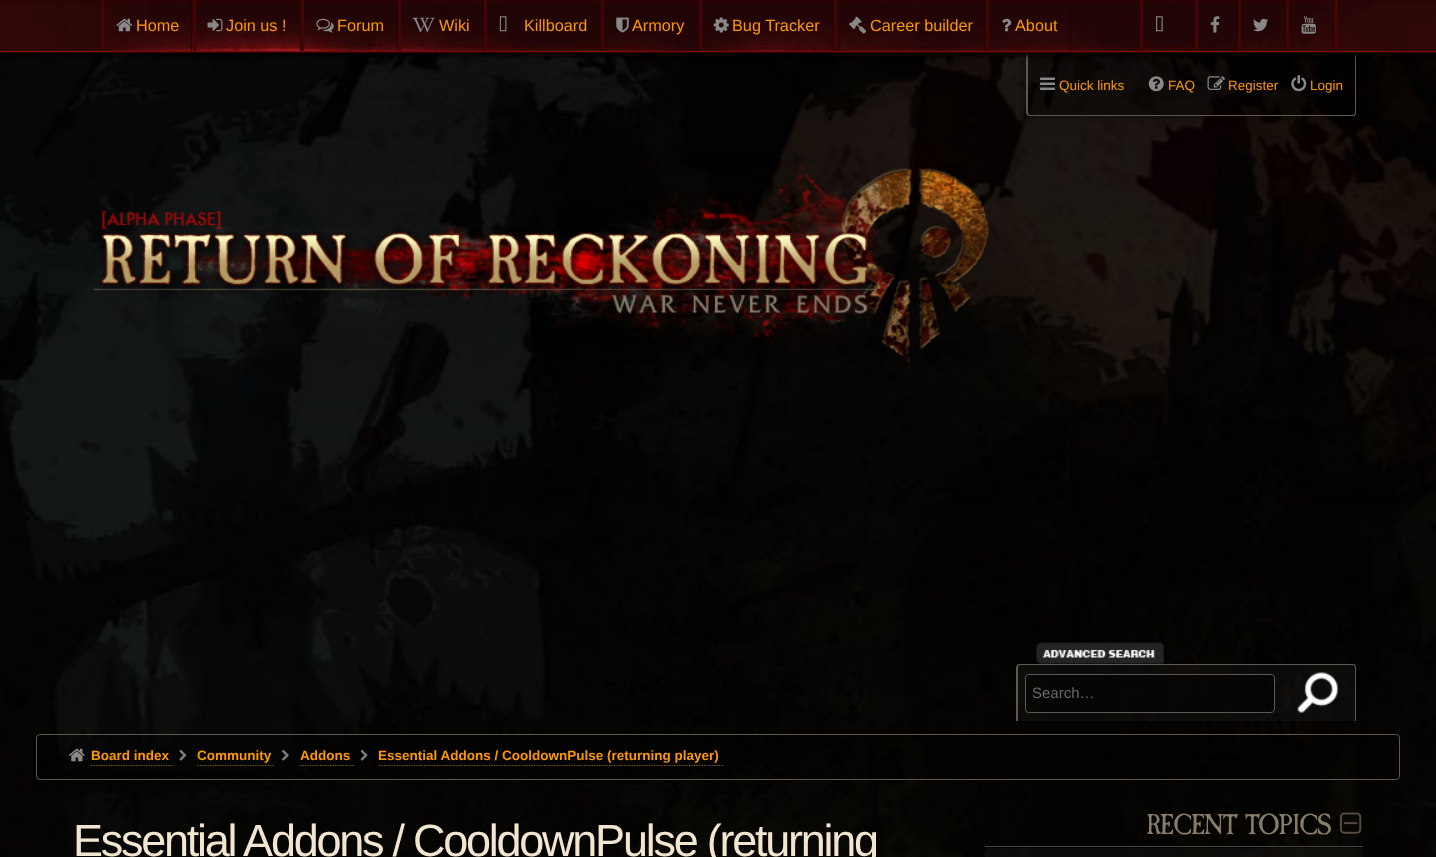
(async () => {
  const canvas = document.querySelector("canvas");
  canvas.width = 1436;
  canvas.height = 857;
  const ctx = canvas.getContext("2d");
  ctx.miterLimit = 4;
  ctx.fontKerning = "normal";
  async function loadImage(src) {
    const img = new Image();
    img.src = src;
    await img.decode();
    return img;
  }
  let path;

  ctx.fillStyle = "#ffffff";
  ctx.fillRect(0, 0, 1436, 857);
  ctx.drawImage(await loadImage("img/1.png"), 0, 53, 1436, 804);
  ctx.save();
  path = new Path2D("M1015 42H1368V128H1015ZM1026 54H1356V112C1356 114 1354 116 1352 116H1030C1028 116 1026 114 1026 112Z");
  ctx.clip(path, "evenodd");
  ctx.fillStyle = "rgba(0, 0, 0, 0.2)";
  ctx.filter = "blur(2.5px)";
  ctx.beginPath();
  ctx.roundRect(1024, 51, 335, 68, 6);
  ctx.fill();
  ctx.filter = "none";
  ctx.restore();
  ctx.fillStyle = "rgba(0, 0, 0, 0.4)";
  ctx.beginPath();
  ctx.roundRect(1026, 54, 330, 62, [0, 0, 4, 4]);
  ctx.fill();
  ctx.fillStyle = "#5e5850";
  path = new Path2D("M1026 54H1356V112C1356 115 1355 116 1352 116H1030C1028 116 1026 115 1026 112ZM1028 54H1355V112C1355 114 1354 115 1352 115H1030C1029 115 1028 114 1028 112Z");
  ctx.fill(path, "evenodd");
  ctx.fillStyle = "#000000";
  ctx.filter = "blur(2px)";
  ctx.beginPath();
  ctx.rect(-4, -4, 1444, 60);
  ctx.fill();
  ctx.filter = "none";
  ctx.fillStyle = "#2a0304";
  ctx.fillRect(0, 0, 1436, 53);
  ctx.drawImage(await loadImage("img/2.png"), 0, 2, 1436, 49);
  for (const [x, y, w, h, color] of [
    [0, 51, 1436, 1, "#7e0505"],
    [1334, 0, 4, 50, "#450404"],
    [100, 0, 1, 50, "#230101"],
    [191, 0, 1, 51, "#230101"],
    [101, 0, 3, 51, "#450404"],
  ]) {
    ctx.fillStyle = color;
    ctx.fillRect(x, y, w, h);
  }
  ctx.drawImage(await loadImage("img/3.png"), 116, 18, 17, 14);
  ctx.fillStyle = "#230101";
  ctx.fillRect(300, 0, 1, 51);
  ctx.fillStyle = "#450404";
  ctx.fillRect(193, 0, 3, 51);
  ctx.drawImage(await loadImage("img/4.png"), 207, 18, 16, 14);
  ctx.fillStyle = "#230101";
  ctx.fillRect(396, 0, 1, 51);
  ctx.fillStyle = "#450404";
  ctx.fillRect(301, 0, 3, 51);
  ctx.drawImage(await loadImage("img/5.png"), 316, 18, 18, 15);
  ctx.fillStyle = "#230101";
  ctx.fillRect(483, 0, 1, 51);
  ctx.fillStyle = "#450404";
  ctx.fillRect(398, 0, 3, 51);
  ctx.drawImage(await loadImage("img/6.png"), 412, 17, 23, 16);
  ctx.fillStyle = "#230101";
  ctx.fillRect(600, 0, 1, 51);
  ctx.fillStyle = "#450404";
  ctx.fillRect(484, 0, 3, 51);
  ctx.drawImage(await loadImage("img/7.png"), 499, 16, 8, 16);
  ctx.fillStyle = "#230101";
  ctx.fillRect(698, 0, 1, 51);
  ctx.fillStyle = "#450404";
  ctx.fillRect(601, 0, 3, 51);
  ctx.drawImage(await loadImage("img/8.png"), 616, 17, 13, 16);
  ctx.fillStyle = "#230101";
  ctx.fillRect(833, 0, 1, 51);
  ctx.fillStyle = "#450404";
  ctx.fillRect(699, 0, 3, 51);
  ctx.drawImage(await loadImage("img/9.png"), 713, 17, 16, 16);
  ctx.fillStyle = "#230101";
  ctx.fillRect(985, 0, 1, 51);
  ctx.fillStyle = "#450404";
  ctx.fillRect(834, 0, 3, 51);
  ctx.drawImage(await loadImage("img/10.png"), 849, 16, 17, 18);
  ctx.fillStyle = "#230101";
  ctx.fillRect(1070, 0, 1, 51);
  ctx.fillStyle = "#450404";
  ctx.fillRect(986, 0, 3, 51);
  ctx.drawImage(await loadImage("img/11.png"), 1002, 18, 10, 14);
  ctx.fillStyle = "#230101";
  ctx.fillRect(1194, 0, 1, 51);
  ctx.fillStyle = "#450404";
  ctx.fillRect(1140, 0, 3, 51);
  ctx.drawImage(await loadImage("img/12.png"), 1156, 16, 7, 16);
  ctx.fillStyle = "#230101";
  ctx.fillRect(1236, 0, 1, 51);
  ctx.fillStyle = "#450404";
  ctx.fillRect(1195, 0, 3, 51);
  ctx.drawImage(await loadImage("img/13.png"), 1210, 16, 10, 17);
  ctx.fillStyle = "#230101";
  ctx.fillRect(1285, 0, 1, 51);
  ctx.fillStyle = "#450404";
  ctx.fillRect(1238, 0, 3, 51);
  ctx.drawImage(await loadImage("img/14.png"), 1253, 18, 16, 14);
  ctx.fillStyle = "#230101";
  ctx.fillRect(1333, 0, 1, 51);
  ctx.fillStyle = "#450404";
  ctx.fillRect(1286, 0, 3, 51);
  ctx.drawImage(await loadImage("img/15.png"), 1301, 16, 15, 18);
  ctx.drawImage(await loadImage("img/16.png"), 1040, 77, 15, 13);
  ctx.drawImage(await loadImage("img/17.png"), 1148, 76, 16, 16);
  ctx.drawImage(await loadImage("img/18.png"), 1207, 76, 18, 14);
  ctx.drawImage(await loadImage("img/19.png"), 1291, 75, 16, 17);
  ctx.drawImage(await loadImage("img/20.png"), 93, 158, 896, 205);
  ctx.fillStyle = "rgba(40, 40, 40, 0.25)";
  ctx.beginPath();
  ctx.roundRect(1016, 664, 340, 57, [4, 4, 0, 0]);
  ctx.fill();
  ctx.fillStyle = "#5e5850";
  path = new Path2D("M1020 664H1352C1355 664 1356 665 1356 668V721H1016V668C1016 665 1018 664 1020 664ZM1020 665H1352C1354 665 1355 666 1355 668V721H1018V668C1018 666 1019 665 1020 665Z");
  ctx.fill(path, "evenodd");
  ctx.drawImage(await loadImage("img/21.png"), 1036, 642, 128, 22);
  ctx.fillStyle = "rgba(0, 0, 0, 0.52)";
  ctx.beginPath();
  ctx.roundRect(1025.5, 674.5, 249, 38, 3.5);
  ctx.fill();
  ctx.strokeStyle = "#5e5850";
  ctx.stroke();
  ctx.drawImage(await loadImage("img/22.png"), 1297, 672, 41, 41);
  ctx.fillStyle = "rgba(0, 0, 0, 0.3)";
  ctx.beginPath();
  ctx.roundRect(36.5, 734.5, 1363, 45, 3.5);
  ctx.fill();
  ctx.stroke();
  ctx.drawImage(await loadImage("img/23.png"), 69, 748, 16, 14);
  ctx.save();
  ctx.beginPath();
  ctx.rect(88, 735, 85, 40);
  ctx.clip();
  path = new Path2D("M91 765.5H176");
  ctx.strokeStyle = "#8c6407";
  ctx.lineWidth = 1.2;
  ctx.setLineDash([1.25, 1.25]);
  ctx.stroke(path);
  ctx.restore();
  ctx.drawImage(await loadImage("img/24.png"), 179, 749, 8, 12);
  ctx.save();
  ctx.beginPath();
  ctx.rect(194, 735, 81, 40);
  ctx.clip();
  path = new Path2D("M197.5 765.5H279");
  ctx.strokeStyle = "#8c6407";
  ctx.lineWidth = 1.2;
  ctx.setLineDash([1.25, 1.25]);
  ctx.stroke(path);
  ctx.restore();
  ctx.drawImage(await loadImage("img/25.png"), 281, 749, 8, 12);
  ctx.save();
  ctx.beginPath();
  ctx.rect(296, 735, 58, 40);
  ctx.clip();
  path = new Path2D("M300 765.5H357.5");
  ctx.strokeStyle = "#8c6407";
  ctx.lineWidth = 1.2;
  ctx.setLineDash([1.25, 1.25]);
  ctx.stroke(path);
  ctx.restore();
  ctx.drawImage(await loadImage("img/26.png"), 360, 749, 8, 12);
  ctx.save();
  ctx.beginPath();
  ctx.rect(375, 735, 348, 40);
  ctx.clip();
  path = new Path2D("M379 765.5H726");
  ctx.strokeStyle = "#8c6407";
  ctx.lineWidth = 1.2;
  ctx.setLineDash([1.25, 1.25]);
  ctx.stroke(path);
  ctx.restore();
  ctx.drawImage(await loadImage("img/27.png"), 1340, 812, 22, 22);
  ctx.fillStyle = "#444444";
  ctx.fillRect(985, 846, 378, 1);
  ctx.fillStyle = "rgba(50, 50, 50, 0.2)";
  ctx.beginPath();
  ctx.roundRect(985, 848, 378, 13, 4);
  ctx.fill();
  ctx.font = "16.25px Liberation Sans";
  ctx.fillStyle = "#ff9900";
  for (const [text, x, y] of [
    ["Home", 136, 31],
    ["Join us !", 226, 31],
    ["Forum", 337, 31],
    ["Wiki", 439, 31],
    ["Killboard", 524, 31],
    ["Armory", 632, 31],
    ["Bug Tracker", 732, 31],
    ["Career builder", 870, 31],
    ["About", 1015, 31],
  ]) {
    ctx.fillText(text, x, y);
  }
  ctx.font = "13.5px Liberation Sans";
  for (const [text, x, y] of [
    ["Quick links", 1059, 90],
    ["FAQ", 1168, 90],
    ["Register", 1228, 90],
    ["Login", 1310, 90],
  ]) {
    ctx.fillText(text, x, y);
  }
  ctx.font = "15px Liberation Sans";
  ctx.fillStyle = "#696969";
  ctx.fillText("Search…", 1032, 698);
  ctx.font = "bold 13.5px Liberation Sans";
  ctx.fillStyle = "#ff9900";
  for (const [text, x, y] of [
    ["Board index", 91, 760],
    ["Community", 197, 760],
    ["Addons", 300, 760],
    ["Essential Addons / CooldownPulse (returning player)", 378, 760],
  ]) {
    ctx.fillText(text, x, y);
  }
  ctx.letterSpacing = "-2.25px";
  ctx.font = "45px Liberation Sans";
  ctx.fillStyle = "#f3e6d0";
  ctx.fillText("Essential Addons / CooldownPulse (returning", 73, 856);
  ctx.letterSpacing = "-1.5px";
  ctx.font = "30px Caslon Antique";
  ctx.fillStyle = "#877b69";
  ctx.fillText("RECENT TOPICS", 1146, 834);
})();
